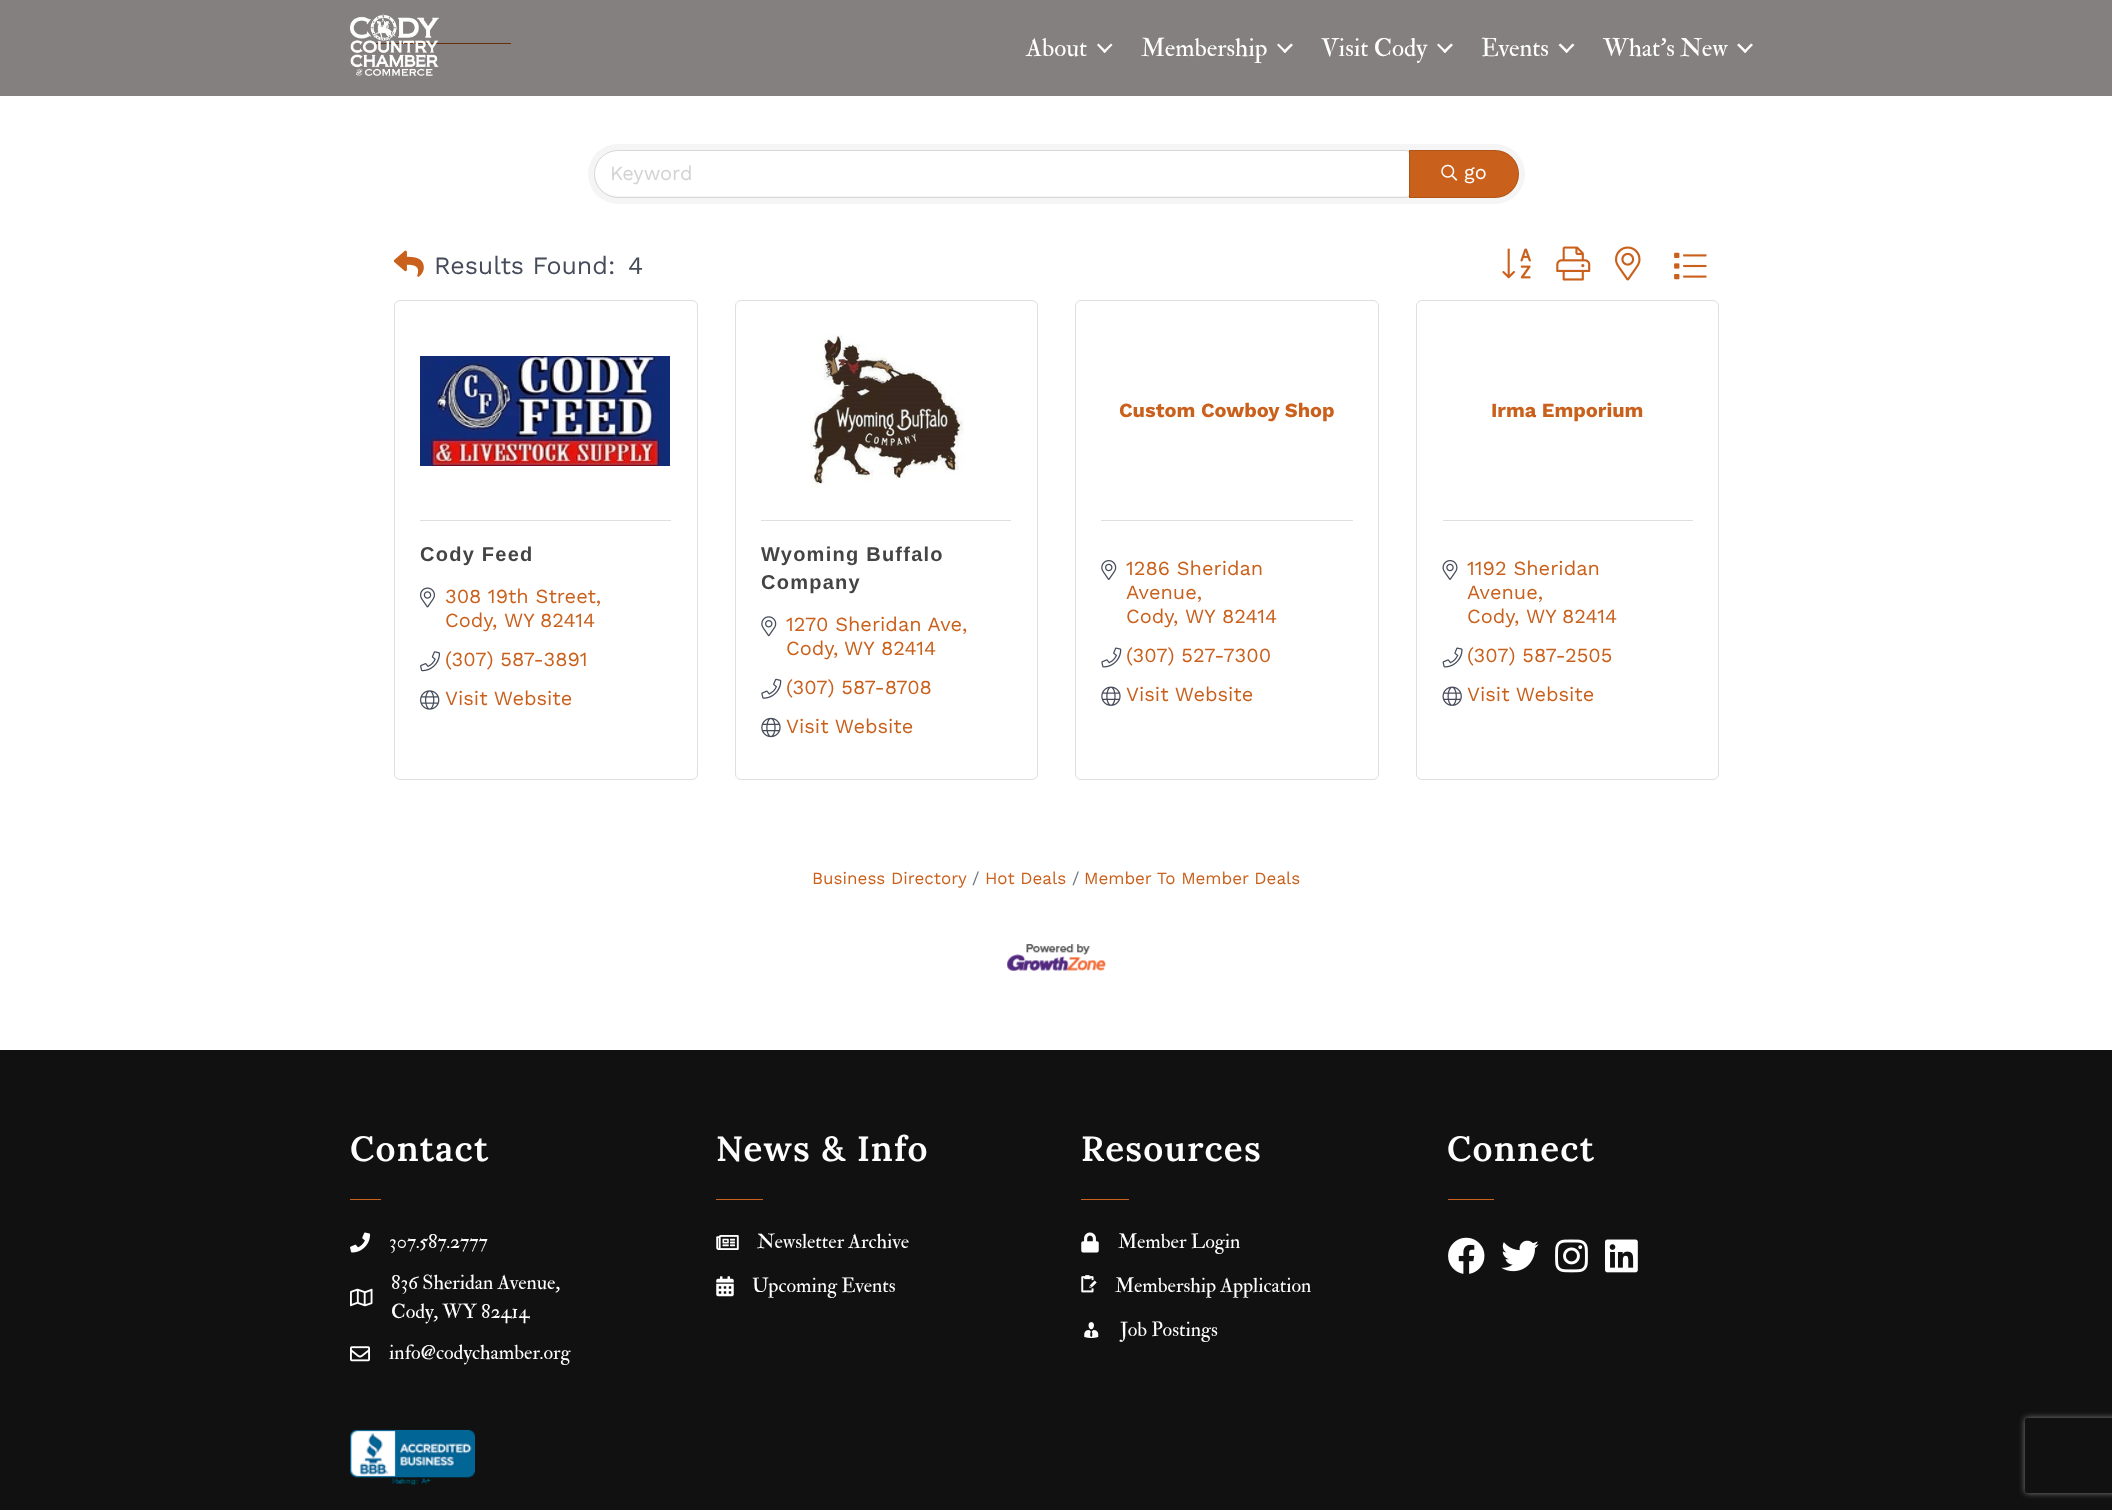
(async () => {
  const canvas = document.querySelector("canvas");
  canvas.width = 2112;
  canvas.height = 1510;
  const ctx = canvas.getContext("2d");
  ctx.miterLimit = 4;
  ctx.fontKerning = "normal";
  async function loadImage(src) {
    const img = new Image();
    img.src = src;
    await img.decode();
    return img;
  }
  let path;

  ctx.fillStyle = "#ffffff";
  ctx.fillRect(0, 0, 2112, 1510);
  ctx.fillStyle = "#858080";
  ctx.fillRect(0, 0, 2112, 96);
  ctx.fillStyle = "#6a300e";
  ctx.fillRect(375, 43, 136, 1);
  ctx.drawImage(await loadImage("img/1.png"), 350, 13, 89, 64);
  ctx.fillStyle = "#ffffff";
  path = new Path2D("M1111 43.5L1112.5 45L1104.5 53L1103 51.5Z");
  ctx.fill(path);
  path = new Path2D("M1098.5 43.5L1106.5 51.5L1104.5 53L1097 45Z");
  ctx.fill(path);
  path = new Path2D("M1291 43.5L1293 45L1285 53L1283 51.5Z");
  ctx.fill(path);
  path = new Path2D("M1278.5 43.5L1286.5 51.5L1285 53L1277 45Z");
  ctx.fill(path);
  path = new Path2D("M1451 43.5L1453 45L1445 53L1443 51.5Z");
  ctx.fill(path);
  path = new Path2D("M1438.5 43.5L1446.5 51.5L1445 53L1437 45Z");
  ctx.fill(path);
  path = new Path2D("M1572.5 43.5L1574.5 45L1566.5 53L1565 51.5Z");
  ctx.fill(path);
  path = new Path2D("M1560.5 43.5L1568.5 51.5L1566.5 53L1558.5 45Z");
  ctx.fill(path);
  path = new Path2D("M1751 43.5L1753 45L1745 53L1743.5 51.5Z");
  ctx.fill(path);
  path = new Path2D("M1739 43.5L1747 51.5L1745 53L1737 45Z");
  ctx.fill(path);
  ctx.fillStyle = "#f5f5f5";
  ctx.beginPath();
  ctx.roundRect(588, 144, 937, 60, 30);
  ctx.fill();
  ctx.fillStyle = "#ffffff";
  ctx.beginPath();
  ctx.roundRect(595, 151, 814, 45, [22.5, 2.5, 2.5, 22.5]);
  ctx.fill();
  ctx.beginPath();
  ctx.roundRect(594.5, 150.5, 815, 47, [23.5, 3.5, 3.5, 23.5]);
  ctx.strokeStyle = "rgba(0, 0, 0, 0.12)";
  ctx.stroke();
  ctx.fillStyle = "#c9601c";
  ctx.beginPath();
  ctx.roundRect(1409, 150, 110, 48, [0, 24, 24, 0]);
  ctx.fill();
  ctx.beginPath();
  ctx.roundRect(1409.5, 150.5, 109, 47, [0, 23.5, 23.5, 0]);
  ctx.stroke();
  ctx.drawImage(await loadImage("img/2.png"), 1441, 164, 17, 17);
  ctx.drawImage(await loadImage("img/3.png"), 393, 250, 31, 27);
  ctx.drawImage(await loadImage("img/4.png"), 1502, 248, 29, 31);
  ctx.drawImage(await loadImage("img/5.png"), 1556, 246, 35, 35);
  ctx.drawImage(await loadImage("img/6.png"), 1615, 246, 26, 35);
  ctx.drawImage(await loadImage("img/7.png"), 1674, 252, 33, 28);
  ctx.beginPath();
  ctx.roundRect(394.5, 300.5, 303, 479, 5.5);
  ctx.strokeStyle = "#dfdfdf";
  ctx.stroke();
  ctx.drawImage(await loadImage("img/8.png"), 420, 356, 250, 110);
  ctx.fillStyle = "#dfdfdf";
  ctx.fillRect(420, 520, 251, 1);
  ctx.drawImage(await loadImage("img/9.png"), 420, 587, 15, 21);
  ctx.drawImage(await loadImage("img/10.png"), 420, 651, 20, 21);
  ctx.drawImage(await loadImage("img/11.png"), 420, 690, 20, 20);
  ctx.beginPath();
  ctx.roundRect(735.5, 300.5, 302, 479, 5.5);
  ctx.stroke();
  ctx.drawImage(await loadImage("img/12.png"), 810, 334, 154, 154);
  ctx.fillRect(761, 520, 250, 1);
  ctx.drawImage(await loadImage("img/13.png"), 761, 616, 16, 21);
  ctx.drawImage(await loadImage("img/14.png"), 761, 678, 21, 21);
  ctx.drawImage(await loadImage("img/15.png"), 761, 717, 20, 21);
  ctx.beginPath();
  ctx.roundRect(1075.5, 300.5, 303, 479, 5.5);
  ctx.stroke();
  ctx.fillRect(1101, 520, 252, 1);
  ctx.drawImage(await loadImage("img/16.png"), 1101, 560, 16, 20);
  ctx.drawImage(await loadImage("img/17.png"), 1101, 647, 21, 21);
  ctx.drawImage(await loadImage("img/18.png"), 1101, 686, 20, 20);
  ctx.beginPath();
  ctx.roundRect(1416.5, 300.5, 302, 479, 5.5);
  ctx.stroke();
  ctx.fillRect(1443, 520, 250, 1);
  ctx.drawImage(await loadImage("img/19.png"), 1442, 560, 16, 20);
  ctx.drawImage(await loadImage("img/20.png"), 1442, 647, 21, 21);
  ctx.drawImage(await loadImage("img/21.png"), 1442, 686, 20, 20);
  ctx.drawImage(await loadImage("img/22.png"), 1007, 944, 99, 27);
  ctx.fillStyle = "#111111";
  ctx.fillRect(0, 1050, 2112, 460);
  ctx.fillStyle = "#c9601c";
  ctx.fillRect(350, 1199, 31, 1);
  ctx.drawImage(await loadImage("img/23.png"), 350, 1232, 20, 21);
  ctx.drawImage(await loadImage("img/24.png"), 350, 1288, 23, 19);
  ctx.drawImage(await loadImage("img/25.png"), 350, 1346, 20, 16);
  ctx.drawImage(await loadImage("img/26.png"), 350, 1429, 125, 56);
  ctx.fillRect(716, 1199, 47, 1);
  ctx.drawImage(await loadImage("img/27.png"), 716, 1235, 23, 15);
  ctx.drawImage(await loadImage("img/28.png"), 716, 1276, 18, 21);
  ctx.fillRect(1081, 1199, 48, 1);
  ctx.drawImage(await loadImage("img/29.png"), 1081, 1232, 18, 21);
  ctx.drawImage(await loadImage("img/30.png"), 1081, 1275, 16, 18);
  ctx.drawImage(await loadImage("img/31.png"), 1084, 1322, 15, 16);
  ctx.fillRect(1448, 1199, 46, 1);
  ctx.drawImage(await loadImage("img/32.png"), 1448, 1237, 37, 37);
  ctx.drawImage(await loadImage("img/33.png"), 1501, 1240, 38, 32);
  ctx.drawImage(await loadImage("img/34.png"), 1555, 1239, 33, 34);
  ctx.drawImage(await loadImage("img/35.png"), 1605, 1239, 33, 34);
  ctx.save();
  path = new Path2D("M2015 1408H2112V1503H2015ZM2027.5 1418H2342.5C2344 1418 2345 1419 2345 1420.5V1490.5C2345 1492 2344 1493 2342.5 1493H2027.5C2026 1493 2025 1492 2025 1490.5V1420.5C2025 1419 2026 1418 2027.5 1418Z");
  ctx.clip(path, "evenodd");
  ctx.fillStyle = "#808080";
  ctx.filter = "blur(3px)";
  ctx.beginPath();
  ctx.roundRect(2025, 1418, 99, 75, 2.5);
  ctx.fill();
  ctx.filter = "none";
  ctx.restore();
  ctx.font = "25px IM FELL Double Pica";
  ctx.fillStyle = "#ffffff";
  for (const [text, x, y] of [
    ["About", 1026, 56],
    ["Membership", 1141, 56],
    ["Visit Cody", 1321, 56],
    ["Events", 1481, 56],
    ["What’s New", 1603, 56],
  ]) {
    ctx.fillText(text, x, y);
  }
  ctx.font = "20px Work Sans";
  ctx.fillStyle = "#d2d2d2";
  ctx.fillText("Keyword", 610, 180);
  ctx.fillStyle = "#ffffff";
  ctx.fillText("go", 1464, 179);
  ctx.font = "25px Work Sans";
  ctx.fillStyle = "#454b59";
  ctx.fillText("Results Found:", 434, 274);
  ctx.fillText("4", 628, 274);
  ctx.letterSpacing = "1.25px";
  ctx.font = "bold 20px Liberation Sans";
  ctx.fillStyle = "#444444";
  ctx.fillText("Cody Feed", 420, 561);
  ctx.letterSpacing = "0px";
  ctx.font = "20px Work Sans";
  ctx.fillStyle = "#c9601c";
  for (const [text, x, y] of [
    ["308 19th Street,", 445, 603],
    ["Cody", 445, 627],
    [",", 492, 627],
    ["WY", 504, 627],
    ["82414", 540, 627],
    ["(307) 587-3891", 445, 666],
    ["Visit Website", 445, 705],
  ]) {
    ctx.fillText(text, x, y);
  }
  ctx.letterSpacing = "1.25px";
  ctx.font = "bold 20px Liberation Sans";
  ctx.fillStyle = "#444444";
  ctx.fillText("Wyoming Buffalo", 761, 561);
  ctx.fillText("Company", 761, 589);
  ctx.letterSpacing = "0px";
  ctx.font = "20px Work Sans";
  ctx.fillStyle = "#c9601c";
  for (const [text, x, y] of [
    ["1270 Sheridan Ave,", 786, 631],
    ["Cody", 786, 655],
    [",", 833, 655],
    ["WY", 844, 655],
    ["82414", 881, 655],
    ["(307) 587-8708", 786, 694],
    ["Visit Website", 786, 733],
  ]) {
    ctx.fillText(text, x, y);
  }
  ctx.font = "bold 20px Work Sans";
  ctx.fillText("Custom Cowboy Shop", 1119, 417);
  ctx.font = "20px Work Sans";
  for (const [text, x, y] of [
    ["1286 Sheridan", 1126, 575],
    ["Avenue,", 1126, 599],
    ["Cody", 1126, 623],
    [",", 1173, 623],
    ["WY", 1185, 623],
    ["82414", 1222, 623],
    ["(307) 527-7300", 1126, 662],
    ["Visit Website", 1126, 701],
  ]) {
    ctx.fillText(text, x, y);
  }
  ctx.font = "bold 20px Work Sans";
  ctx.fillText("Irma Emporium", 1491, 417);
  ctx.font = "20px Work Sans";
  for (const [text, x, y] of [
    ["1192 Sheridan", 1467, 575],
    ["Avenue,", 1467, 599],
    ["Cody", 1467, 623],
    [",", 1514, 623],
    ["WY", 1526, 623],
    ["82414", 1562, 623],
    ["(307) 587-2505", 1467, 662],
    ["Visit Website", 1467, 701],
  ]) {
    ctx.fillText(text, x, y);
  }
  ctx.font = "17px Work Sans";
  ctx.fillText("Business Directory", 812, 884);
  ctx.fillStyle = "#6c757d";
  ctx.fillText("/", 972, 884);
  ctx.fillStyle = "#c9601c";
  ctx.fillText("Hot Deals", 985, 884);
  ctx.fillStyle = "#6c757d";
  ctx.fillText("/", 1072, 884);
  ctx.fillStyle = "#c9601c";
  ctx.fillText("Member To Member Deals", 1084, 884);
  ctx.letterSpacing = "1.25px";
  ctx.font = "600 35px Lora";
  ctx.fillStyle = "#ffffff";
  ctx.fillText("Contact", 350, 1161);
  ctx.letterSpacing = "0px";
  ctx.font = "20px IM FELL Double Pica";
  for (const [text, x, y] of [
    ["307.587.2777", 389, 1248],
    ["836 Sheridan Avenue,", 391, 1289],
    ["Cody, WY 82414", 391, 1318],
    ["info@codychamber.org", 389, 1359],
  ]) {
    ctx.fillText(text, x, y);
  }
  ctx.letterSpacing = "1.25px";
  ctx.font = "600 35px Lora";
  ctx.fillText("News & Info", 716, 1161);
  ctx.letterSpacing = "0px";
  ctx.font = "20px IM FELL Double Pica";
  ctx.fillText("Newsletter Archive", 757, 1248);
  ctx.fillText("Upcoming Events", 752, 1292);
  ctx.letterSpacing = "1.25px";
  ctx.font = "600 35px Lora";
  ctx.fillText("Resources", 1081, 1161);
  ctx.letterSpacing = "0px";
  ctx.font = "20px IM FELL Double Pica";
  for (const [text, x, y] of [
    ["Member Login", 1118, 1248],
    ["Membership Application", 1115, 1292],
    ["Job Postings", 1120, 1336],
  ]) {
    ctx.fillText(text, x, y);
  }
  ctx.letterSpacing = "1.25px";
  ctx.font = "600 35px Lora";
  ctx.fillText("Connect", 1447, 1161);
})();
